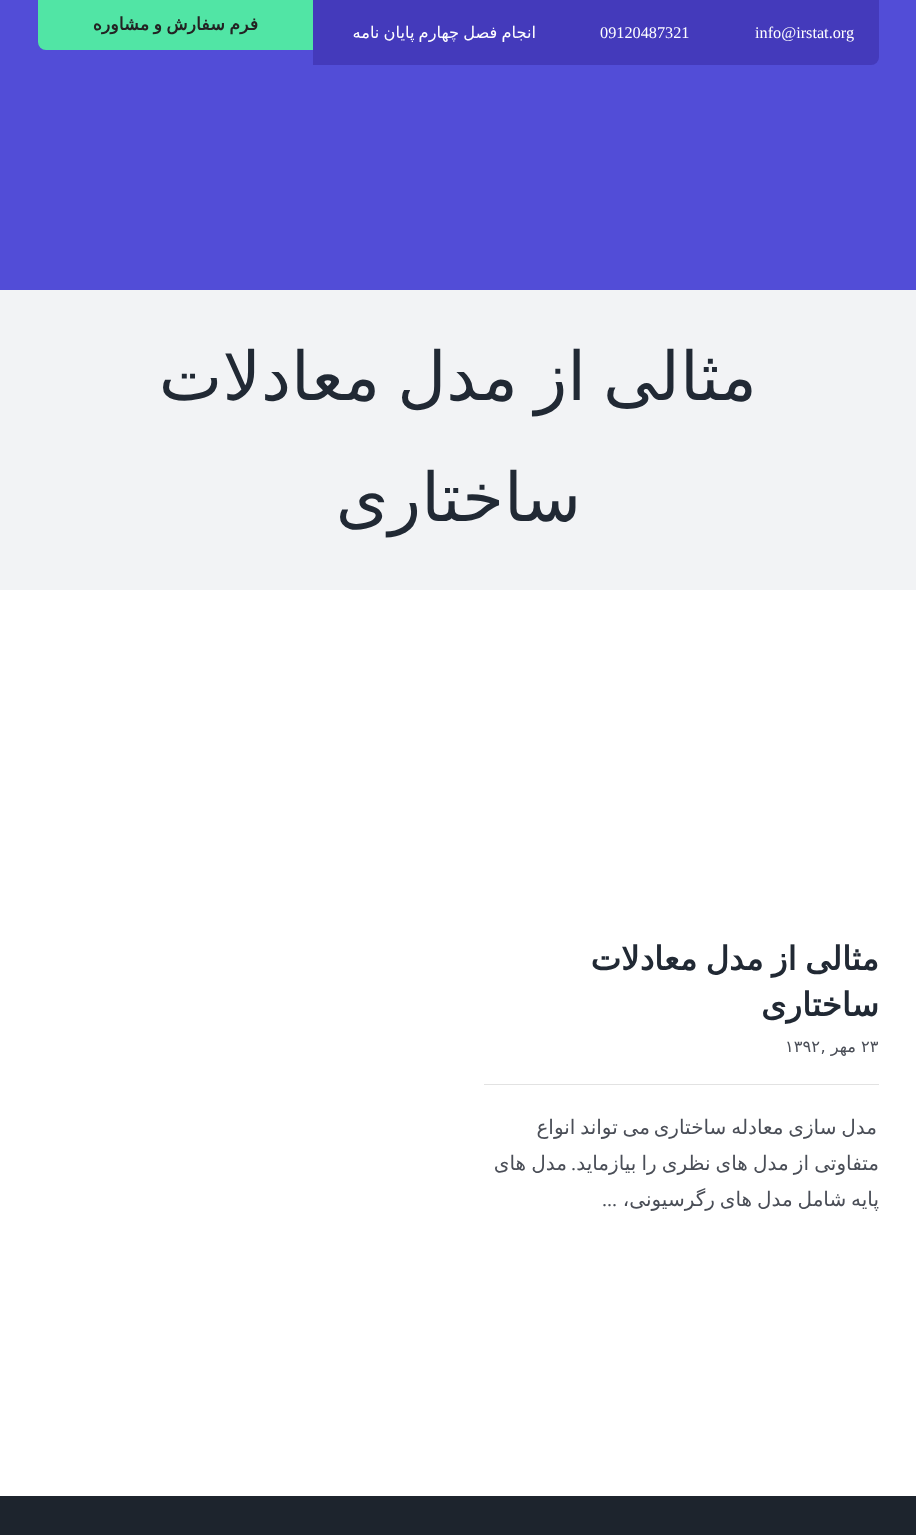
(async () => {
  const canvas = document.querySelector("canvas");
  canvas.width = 916;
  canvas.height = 1535;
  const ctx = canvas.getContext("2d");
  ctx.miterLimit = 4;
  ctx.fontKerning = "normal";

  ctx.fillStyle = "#ffffff";
  ctx.fillRect(0, 0, 916, 1535);
  ctx.fillStyle = "#524dd7";
  ctx.fillRect(0, 0, 916, 290);
  ctx.fillStyle = "#443abb";
  ctx.beginPath();
  ctx.roundRect(313, 0, 566, 65, [0, 0, 8, 0]);
  ctx.fill();
  ctx.fillStyle = "#51e5a5";
  ctx.beginPath();
  ctx.roundRect(38, 0, 275, 50, [0, 0, 0, 8]);
  ctx.fill();
  for (const [x, y, w, h, color] of [
    [0, 290, 916, 300, "#f2f3f5"],
    [484, 1084, 395, 1, "#e2e2e2"],
    [0, 1496, 916, 39, "#1d242d"],
  ]) {
    ctx.fillStyle = color;
    ctx.fillRect(x, y, w, h);
  }
  ctx.font = "16.25px Liberation Serif";
  ctx.fillStyle = "#ffffff";
  ctx.fillText("info@irstat.org", 755, 38);
  ctx.fillText("09120487321", 600, 38);
  ctx.wordSpacing = "-1px";
  ctx.direction = "rtl";
  ctx.font = "16.25px DejaVu Sans";
  ctx.fillText("انجام فصل چهارم پایان نامه", 536, 38);
  ctx.wordSpacing = "-1.25px";
  ctx.font = "bold 17.5px DejaVu Sans";
  ctx.fillStyle = "#232323";
  ctx.fillText("فرم سفارش و مشاوره", 258, 30);
  ctx.wordSpacing = "-4.5px";
  ctx.font = "67.5px DejaVu Sans";
  ctx.fillStyle = "#212934";
  ctx.fillText("مثالی از مدل معادلات", 757, 400);
  ctx.wordSpacing = "0px";
  ctx.fillText("ساختاری", 581, 521);
  ctx.save();
  ctx.beginPath();
  ctx.rect(484, 665, 395, 604);
  ctx.clip();
  ctx.wordSpacing = "-2px";
  ctx.font = "bold 32.5px DejaVu Sans";
  ctx.fillText("مثالی از مدل معادلات", 879, 970);
  ctx.restore();
  ctx.font = "bold 32.5px DejaVu Sans";
  ctx.fillText("ساختاری", 879, 1016);
  ctx.direction = "ltr";
  ctx.font = "16.25px DejaVu Sans";
  ctx.fillStyle = "#4a4e57";
  ctx.fillText("۲۳", 861, 1052);
  ctx.direction = "rtl";
  ctx.fillText("مهر ,", 856, 1052);
  ctx.direction = "ltr";
  ctx.fillText("۱۳۹۲", 785, 1052);
  ctx.save();
  ctx.beginPath();
  ctx.rect(484, 665, 395, 604);
  ctx.clip();
  ctx.wordSpacing = "-1.5px";
  ctx.direction = "rtl";
  ctx.font = "20px DejaVu Sans";
  ctx.fillText("مدل سازی معادله ساختاری", 877, 1134);
  ctx.restore();
  ctx.wordSpacing = "-1.5px";
  ctx.direction = "rtl";
  ctx.font = "20px DejaVu Sans";
  ctx.fillText("می تواند انواع", 650, 1134);
  ctx.save();
  ctx.beginPath();
  ctx.rect(484, 665, 395, 604);
  ctx.clip();
  ctx.wordSpacing = "-1.25px";
  ctx.fillText("متفاوتی از مدل های نظری را بیازماید", 879, 1170);
  ctx.restore();
  ctx.wordSpacing = "0px";
  ctx.font = "20px Liberation Serif";
  ctx.fillText(".", 576, 1170);
  ctx.wordSpacing = "-1.25px";
  ctx.font = "20px DejaVu Sans";
  ctx.fillText("مدل های", 567, 1170);
  ctx.save();
  ctx.beginPath();
  ctx.rect(484, 665, 395, 604);
  ctx.clip();
  ctx.wordSpacing = "-1.5px";
  ctx.fillText("پایه شامل مدل های رگرسیونی،", 879, 1206);
  ctx.restore();
  ctx.wordSpacing = "0px";
  ctx.direction = "ltr";
  ctx.font = "20px Liberation Serif";
  ctx.fillText("...", 602, 1206);
})();
